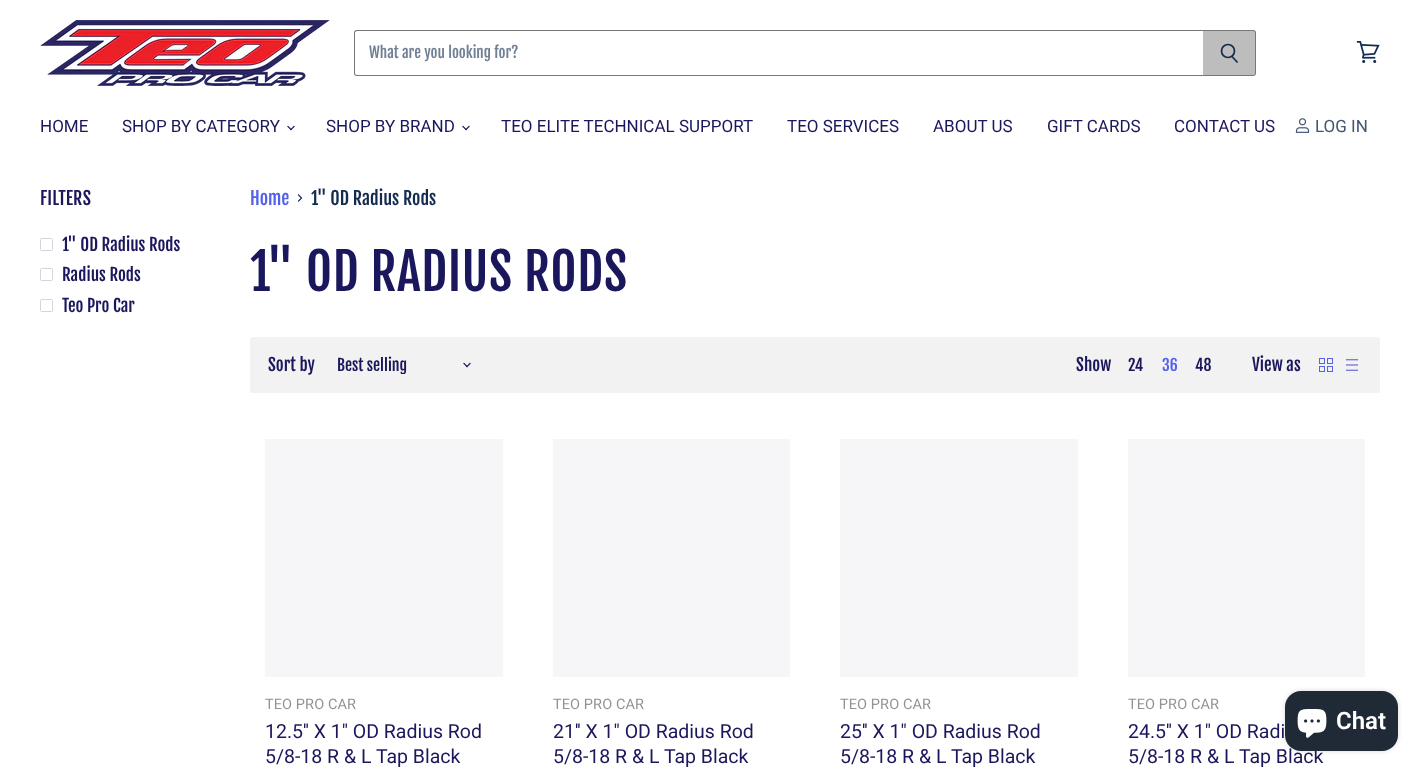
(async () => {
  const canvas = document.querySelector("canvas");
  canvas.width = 1420;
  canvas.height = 772;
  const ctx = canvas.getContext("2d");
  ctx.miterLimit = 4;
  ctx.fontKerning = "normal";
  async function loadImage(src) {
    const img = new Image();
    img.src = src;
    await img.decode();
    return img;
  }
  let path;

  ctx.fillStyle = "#ffffff";
  ctx.fillRect(0, 0, 1420, 772);
  ctx.drawImage(await loadImage("img/1.png"), 40, 20, 290, 66);
  ctx.fillStyle = "#777777";
  path = new Path2D("M357 30H1203V76H357C355 76 354 75 354 73V33C354 31 355 30 357 30ZM357 31H1203V75H357C356 75 355 74 355 73V33C355 32 356 31 357 31Z");
  ctx.fill(path, "evenodd");
  ctx.fillStyle = "#bdbdbd";
  ctx.beginPath();
  ctx.roundRect(1203, 31, 52, 44, [0, 2, 2, 0]);
  ctx.fill();
  ctx.fillStyle = "#777777";
  path = new Path2D("M1203 30H1253C1255 30 1256 31 1256 33V73C1256 75 1255 76 1253 76H1203ZM1203 31H1253C1254 31 1255 32 1255 33V73C1255 74 1254 75 1253 75H1203Z");
  ctx.fill(path, "evenodd");
  path = new Path2D("M1237.5 62.5L1232 56.5");
  ctx.strokeStyle = "#132b4e";
  ctx.lineWidth = 1.7;
  ctx.stroke(path);
  ctx.beginPath();
  ctx.arc(1228, 51, 6.5, 0, Math.PI * 2);
  ctx.stroke();
  ctx.drawImage(await loadImage("img/2.png"), 1356, 41, 24, 22);
  ctx.drawImage(await loadImage("img/3.png"), 287, 125, 8, 6);
  ctx.drawImage(await loadImage("img/3.png"), 462, 125, 8, 6);
  ctx.drawImage(await loadImage("img/4.png"), 1295, 118, 15, 15);
  ctx.beginPath();
  ctx.roundRect(40.5, 238.5, 12, 12, 1);
  ctx.strokeStyle = "#d3d4de";
  ctx.lineWidth = 1;
  ctx.stroke();
  ctx.beginPath();
  ctx.roundRect(40.5, 268.5, 12, 12, 1);
  ctx.stroke();
  ctx.beginPath();
  ctx.roundRect(40.5, 299.5, 12, 12, 1);
  ctx.stroke();
  ctx.save();
  path = new Path2D("M298 202V194H303V202Z");
  ctx.clip(path);
  path = new Path2D("M298 201.5L301.5 198L298 194.5");
  ctx.strokeStyle = "#132b4e";
  ctx.lineWidth = 1.2;
  ctx.stroke(path);
  ctx.restore();
  ctx.fillStyle = "#f2f2f2";
  ctx.beginPath();
  ctx.roundRect(250, 337, 1130, 56, 2.5);
  ctx.fill();
  ctx.drawImage(await loadImage("img/5.png"), 463, 362, 8, 6);
  ctx.drawImage(await loadImage("img/6.png"), 1319, 358, 14, 14);
  ctx.drawImage(await loadImage("img/7.png"), 1346, 359, 12, 12);
  for (const [x, y, w, h, color] of [
    [265, 439, 238, 238, "#f6f6f9"],
    [553, 439, 237, 238, "#f6f6f9"],
    [840, 439, 238, 238, "#f6f6f9"],
    [1128, 439, 237, 238, "#f6f6f9"],
  ]) {
    ctx.fillStyle = color;
    ctx.fillRect(x, y, w, h);
  }
  ctx.fillStyle = "rgba(0, 0, 0, 0.15)";
  ctx.filter = "blur(2.5px)";
  ctx.beginPath();
  ctx.roundRect(1285, 691, 113, 60, 16);
  ctx.fill();
  ctx.filter = "none";
  ctx.font = "15px Fjalla One";
  ctx.fillStyle = "#718095";
  ctx.fillText("What are you looking for?", 369, 58);
  ctx.font = "17px Roboto";
  ctx.fillStyle = "#1b175d";
  for (const [text, x, y] of [
    ["HOME", 40, 132],
    ["SHOP BY CATEGORY", 122, 132],
    ["SHOP BY BRAND", 326, 132],
    ["TEO ELITE TECHNICAL SUPPORT", 501, 132],
    ["TEO SERVICES", 787, 132],
    ["ABOUT US", 933, 132],
    ["GIFT CARDS", 1047, 132],
    ["CONTACT US", 1174, 132],
  ]) {
    ctx.fillText(text, x, y);
  }
  ctx.fillStyle = "#425571";
  ctx.fillText("LOG IN", 1315, 132);
  ctx.letterSpacing = "0.25px";
  ctx.font = "18px Fjalla One";
  ctx.fillStyle = "#1b175d";
  ctx.fillText("FILTERS", 40, 205);
  ctx.letterSpacing = "0px";
  ctx.font = "17px Fjalla One";
  for (const [text, x, y] of [
    ["1\" OD Radius Rods", 62, 251],
    ["Radius Rods", 62, 281],
    ["Teo Pro Car", 62, 312],
  ]) {
    ctx.fillText(text, x, y);
  }
  ctx.font = "18px Fjalla One";
  ctx.fillStyle = "#5461ed";
  ctx.fillText("Home", 250, 205);
  ctx.fillStyle = "#132b4e";
  ctx.fillText("1\" OD Radius Rods", 311, 205);
  ctx.letterSpacing = "0.5px";
  ctx.font = "50.5px Fjalla One";
  ctx.fillStyle = "#1b175d";
  ctx.fillText("1\" OD RADIUS RODS", 250, 291);
  ctx.letterSpacing = "0px";
  ctx.font = "17px Fjalla One";
  ctx.fillText("Sort by", 268, 371);
  ctx.save();
  ctx.beginPath();
  ctx.rect(337, 356, 112, 18);
  ctx.clip();
  ctx.font = "15.75px Fjalla One";
  ctx.fillText("Best selling", 337, 371);
  ctx.restore();
  ctx.fillText("Show", 1076, 371);
  ctx.font = "15.75px Fjalla One";
  ctx.fillText("24", 1128, 371);
  ctx.fillStyle = "#5461ed";
  ctx.fillText("36", 1162, 371);
  ctx.fillStyle = "#1b175d";
  ctx.fillText("48", 1195, 371);
  ctx.font = "17px Fjalla One";
  ctx.fillText("View as", 1252, 371);
  ctx.letterSpacing = "0.1px";
  ctx.font = "14.5px Roboto";
  ctx.fillStyle = "#929292";
  ctx.fillText("TEO PRO CAR", 265, 709);
  ctx.letterSpacing = "0px";
  ctx.font = "19.5px Roboto";
  ctx.fillStyle = "#1b175d";
  ctx.fillText("12.5'' X 1\" OD Radius Rod", 265, 738);
  ctx.fillText("5/8-18 R & L Tap Black", 265, 763);
  ctx.letterSpacing = "0.1px";
  ctx.font = "14.5px Roboto";
  ctx.fillStyle = "#929292";
  ctx.fillText("TEO PRO CAR", 553, 709);
  ctx.letterSpacing = "0px";
  ctx.font = "19.5px Roboto";
  ctx.fillStyle = "#1b175d";
  ctx.fillText("21'' X 1\" OD Radius Rod", 553, 738);
  ctx.fillText("5/8-18 R & L Tap Black", 553, 763);
  ctx.letterSpacing = "0.1px";
  ctx.font = "14.5px Roboto";
  ctx.fillStyle = "#929292";
  ctx.fillText("TEO PRO CAR", 840, 709);
  ctx.letterSpacing = "0px";
  ctx.font = "19.5px Roboto";
  ctx.fillStyle = "#1b175d";
  ctx.fillText("25'' X 1\" OD Radius Rod", 840, 738);
  ctx.fillText("5/8-18 R & L Tap Black", 840, 763);
  ctx.letterSpacing = "0.1px";
  ctx.font = "14.5px Roboto";
  ctx.fillStyle = "#929292";
  ctx.fillText("TEO PRO CAR", 1128, 709);
  ctx.letterSpacing = "0px";
  ctx.font = "19.5px Roboto";
  ctx.fillStyle = "#1b175d";
  ctx.fillText("24.5'' X 1\" OD Radi", 1128, 738);
  ctx.fillText("5/8-18 R & L Tap Black", 1128, 763);
  ctx.fillStyle = "#202a36";
  ctx.beginPath();
  ctx.roundRect(1285, 691, 113, 60, 16);
  ctx.fill();
  ctx.drawImage(await loadImage("img/8.png"), 1297, 709, 30, 29);
  ctx.font = "600 24px Roboto";
  ctx.fillStyle = "#ffffff";
  ctx.fillText("Chat", 1336, 729);
})();
